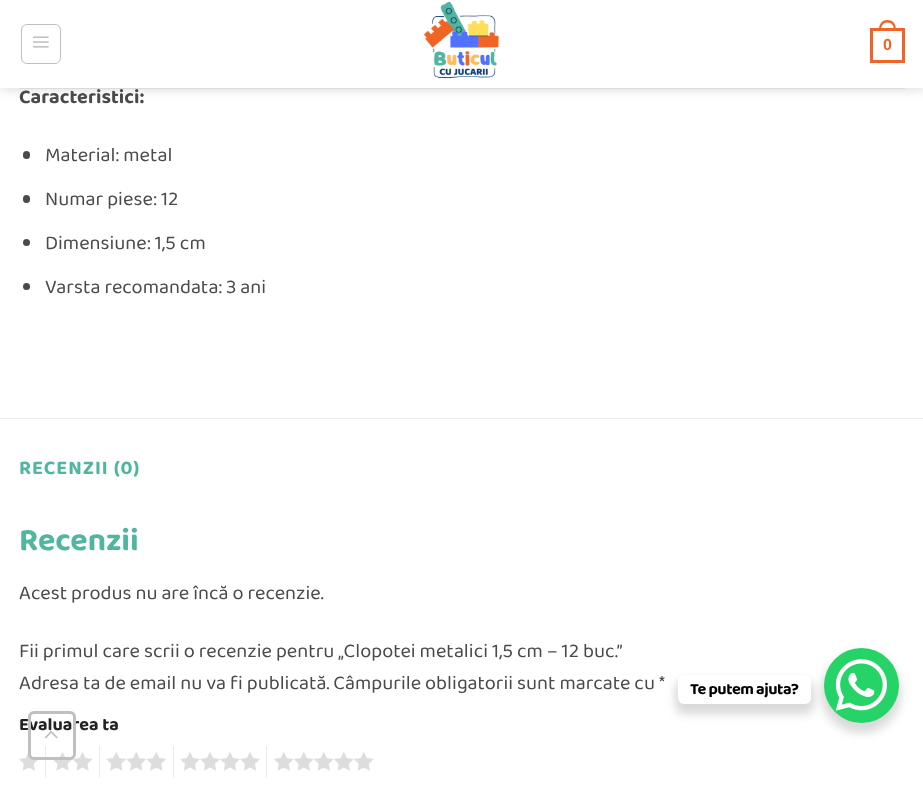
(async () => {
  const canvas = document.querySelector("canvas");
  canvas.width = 923;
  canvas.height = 785;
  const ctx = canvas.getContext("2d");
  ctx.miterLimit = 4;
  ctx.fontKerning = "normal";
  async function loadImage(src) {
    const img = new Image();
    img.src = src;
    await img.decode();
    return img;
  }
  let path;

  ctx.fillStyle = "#ffffff";
  ctx.fillRect(0, 0, 923, 785);
  ctx.save();
  path = new Path2D("M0 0H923V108H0ZM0 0H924V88H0Z");
  ctx.clip(path, "evenodd");
  ctx.fillStyle = "rgba(0, 0, 0, 0.15)";
  ctx.filter = "blur(6px)";
  ctx.beginPath();
  ctx.rect(1, 1, 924, 88);
  ctx.fill();
  ctx.filter = "none";
  ctx.restore();
  ctx.beginPath();
  ctx.roundRect(21.5, 24.5, 39, 39, 5.5);
  ctx.strokeStyle = "#c0c0c0";
  ctx.stroke();
  ctx.drawImage(await loadImage("img/1.png"), 33, 36, 16, 12);
  ctx.drawImage(await loadImage("img/2.png"), 419, 0, 86, 79);
  ctx.strokeStyle = "#f06525";
  ctx.lineWidth = 3;
  ctx.strokeRect(871.5, 29.5, 32, 32);
  ctx.fillStyle = "#f06525";
  path = new Path2D("M887.5 20C893.5 20 896 24.5 896 30H879C879 24.5 881.5 20 887.5 20ZM887.5 22.5C892 22.5 894 26 894 30H881C881 26 883 22.5 887.5 22.5Z");
  ctx.fill(path, "evenodd");
  ctx.fillStyle = "#dbdbdb";
  ctx.fillRect(19, 88, 886, 1);
  ctx.fillStyle = "rgba(255, 255, 255, 0.9)";
  ctx.fillRect(0, 87, 923, 1);
  ctx.fillStyle = "#4a4a4a";
  ctx.beginPath();
  ctx.roundRect(23, 151, 7, 8, 3.5);
  ctx.fill();
  ctx.beginPath();
  ctx.roundRect(23, 195, 7, 8, 3.5);
  ctx.fill();
  ctx.beginPath();
  ctx.arc(26.5, 242.5, 3.5, 0, Math.PI * 2);
  ctx.fill();
  ctx.beginPath();
  ctx.arc(26.5, 286.5, 3.5, 0, Math.PI * 2);
  ctx.fill();
  ctx.fillStyle = "#ececec";
  ctx.fillRect(0, 418, 923, 1);
  ctx.drawImage(await loadImage("img/3.png"), 19, 753, 19, 18);
  ctx.fillRect(45, 746, 1, 32);
  ctx.drawImage(await loadImage("img/4.png"), 53, 752, 40, 19);
  ctx.fillRect(99, 746, 1, 32);
  ctx.drawImage(await loadImage("img/5.png"), 106, 752, 60, 19);
  ctx.fillRect(173, 746, 1, 32);
  ctx.drawImage(await loadImage("img/6.png"), 180, 752, 80, 19);
  ctx.fillRect(266, 746, 1, 32);
  ctx.drawImage(await loadImage("img/7.png"), 274, 752, 100, 19);
  ctx.fillStyle = "rgba(0, 0, 0, 0.15)";
  ctx.filter = "blur(5px)";
  ctx.beginPath();
  ctx.roundRect(821, 653, 80, 80, 40);
  ctx.fill();
  ctx.filter = "none";
  ctx.fillStyle = "#25d366";
  ctx.beginPath();
  ctx.arc(861.5, 685.5, 37.5, 0, Math.PI * 2);
  ctx.fill();
  ctx.fillStyle = "rgba(0, 0, 0, 0.15)";
  ctx.filter = "blur(5px)";
  ctx.beginPath();
  ctx.roundRect(675, 680, 139, 34, 9);
  ctx.fill();
  ctx.filter = "none";
  ctx.fillStyle = "#ffffff";
  ctx.beginPath();
  ctx.roundRect(678, 675, 133, 29, 6);
  ctx.fill();
  ctx.drawImage(await loadImage("img/9.png"), 835, 659, 52, 52);
  ctx.font = "bold 16px Liberation Sans";
  ctx.fillStyle = "#f06525";
  ctx.fillText("0", 883, 50);
  ctx.font = "bold 20px 'Baloo Thambi 2'";
  ctx.fillStyle = "#4a4a4a";
  ctx.fillText("Caracteristici:", 19, 103);
  ctx.font = "20px 'Baloo Thambi 2'";
  for (const [text, x, y] of [
    ["Material: metal", 45, 161],
    ["Numar piese: 12", 45, 205],
    ["Dimensiune: 1,5 cm", 45, 249],
    ["Varsta recomandata: 3 ani", 45, 293],
  ]) {
    ctx.fillText(text, x, y);
  }
  ctx.letterSpacing = "1px";
  ctx.font = "bold 20px 'Baloo Thambi 2'";
  ctx.fillStyle = "#52b5a0";
  ctx.fillText("RECENZII (0)", 19, 474);
  ctx.letterSpacing = "0px";
  ctx.font = "bold 32px 'Baloo Thambi 2'";
  ctx.fillText("Recenzii", 19, 550);
  ctx.font = "20px 'Baloo Thambi 2'";
  ctx.fillStyle = "#4a4a4a";
  for (const [text, x, y] of [
    ["Acest produs nu are încă o recenzie.", 19, 599],
    ["Fii primul care scrii o recenzie pentru „Clopotei metalici 1,5 cm – 12 buc.”", 19, 657],
    ["Adresa ta de email nu va fi publicată. Câmpurile obligatorii sunt marcate cu *", 19, 689],
  ]) {
    ctx.fillText(text, x, y);
  }
  ctx.font = "bold 18px 'Baloo Thambi 2'";
  ctx.fillStyle = "#222222";
  ctx.fillText("Evaluarea ta", 19, 730);
  ctx.beginPath();
  ctx.roundRect(29.5, 712.5, 45, 46, 4.5);
  ctx.strokeStyle = "#c0c0c0";
  ctx.stroke();
  ctx.drawImage(await loadImage("img/8.png"), 44, 730, 14, 9);
  ctx.letterSpacing = "-0.5px";
  ctx.font = "bold 16.25px 'Baloo Thambi 2'";
  ctx.fillStyle = "#000000";
  ctx.fillText("Te putem ajuta?", 690, 694);
})();
